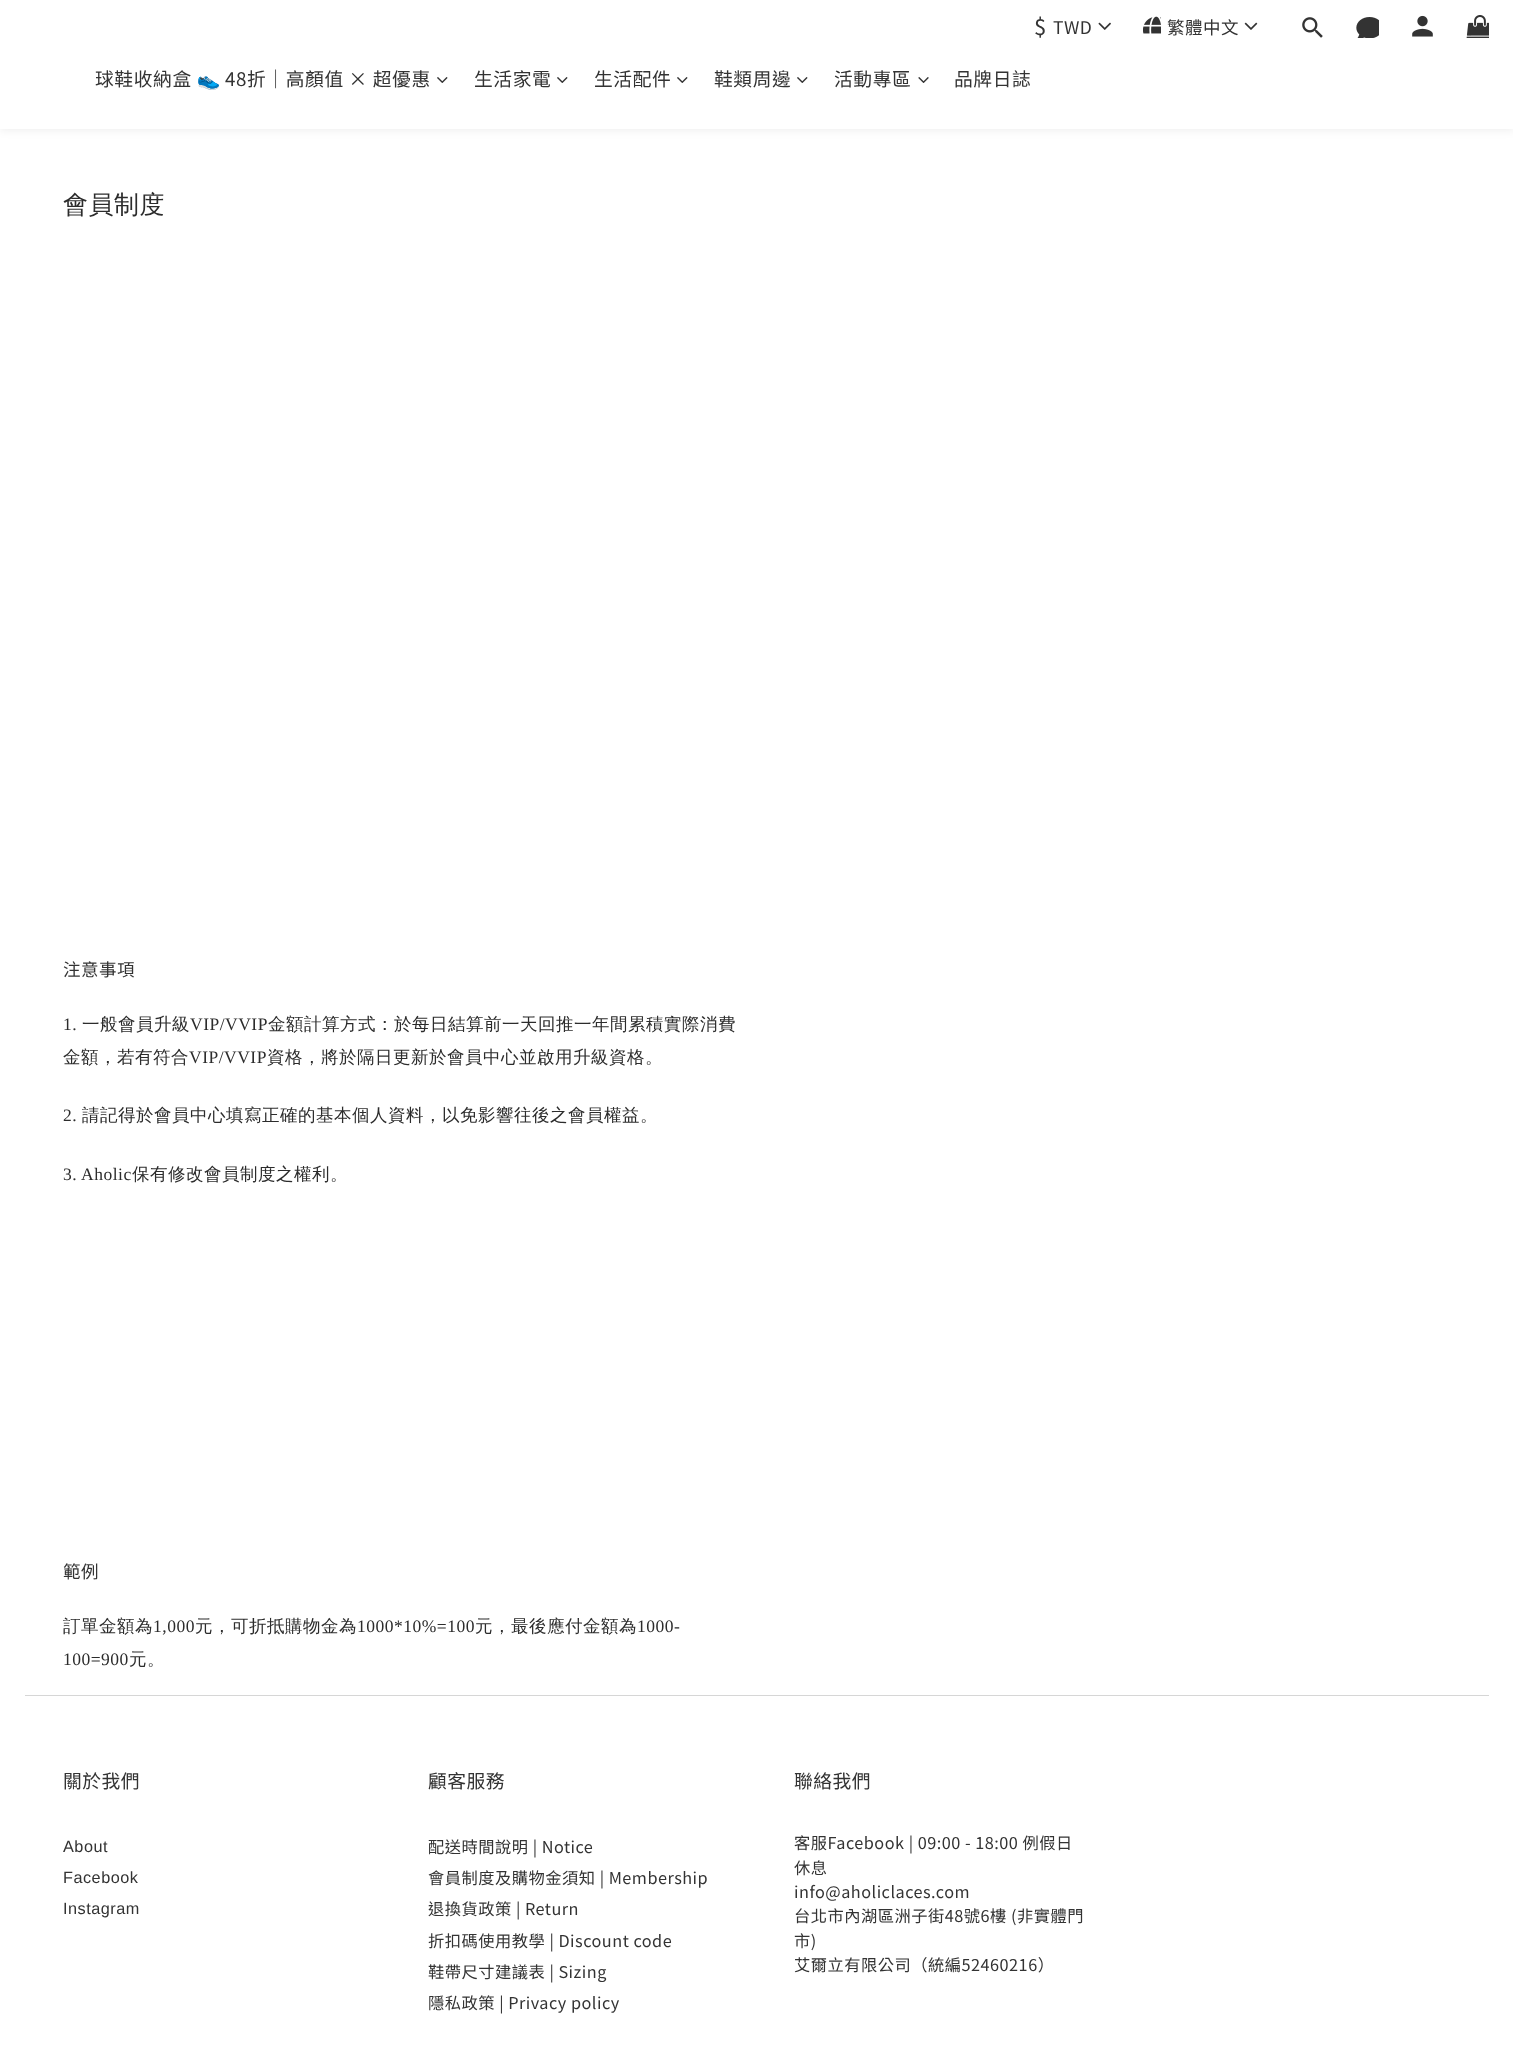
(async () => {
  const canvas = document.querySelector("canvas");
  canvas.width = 1513;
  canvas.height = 2071;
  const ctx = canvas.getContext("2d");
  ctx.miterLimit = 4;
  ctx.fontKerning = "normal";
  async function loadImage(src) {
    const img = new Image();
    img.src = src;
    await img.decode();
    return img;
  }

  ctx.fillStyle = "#ffffff";
  ctx.fillRect(0, 0, 1513, 2071);
  ctx.fillStyle = "rgba(0, 0, 0, 0.06)";
  ctx.filter = "blur(4px)";
  ctx.beginPath();
  ctx.rect(0, 3, 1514, 128);
  ctx.fill();
  ctx.filter = "none";
  ctx.fillStyle = "#ffffff";
  ctx.fillRect(0, 0, 1513, 129);
  ctx.drawImage(await loadImage("img/1.png"), 1098, 22, 13, 8);
  ctx.drawImage(await loadImage("img/2.png"), 1143, 16, 18, 18);
  ctx.drawImage(await loadImage("img/3.png"), 1244, 22, 14, 8);
  ctx.drawImage(await loadImage("img/4.png"), 1302, 17, 21, 21);
  ctx.drawImage(await loadImage("img/5.png"), 1356, 17, 23, 21);
  ctx.drawImage(await loadImage("img/6.png"), 1412, 15, 21, 22);
  ctx.drawImage(await loadImage("img/7.png"), 1466, 15, 23, 23);
  ctx.drawImage(await loadImage("img/8.png"), 437, 77, 11, 6);
  ctx.drawImage(await loadImage("img/8.png"), 557, 77, 11, 6);
  ctx.drawImage(await loadImage("img/8.png"), 677, 77, 11, 6);
  ctx.drawImage(await loadImage("img/8.png"), 797, 77, 11, 6);
  ctx.drawImage(await loadImage("img/9.png"), 918, 77, 11, 6);
  ctx.fillStyle = "#d6d6d6";
  ctx.fillRect(25, 1695, 1464, 1);
  ctx.letterSpacing = "2px";
  ctx.font = "22px Noto Sans TC";
  ctx.fillStyle = "#333333";
  ctx.fillText("$", 1034, 35);
  ctx.letterSpacing = "0.5px";
  ctx.font = "17.5px Noto Sans TC";
  ctx.fillText("TWD", 1053, 34);
  ctx.fillText("繁體中文", 1167, 34);
  ctx.letterSpacing = "0.6px";
  ctx.font = "18.75px Noto Sans TC";
  ctx.fillText("球鞋收納盒", 95, 86);
  ctx.font = "18.75px Noto Color Emoji";
  ctx.fillText("👟", 197, 86);
  ctx.font = "18.75px Noto Sans TC";
  for (const [text, x, y] of [
    ["48折｜高顏值 × 超優惠", 225, 86],
    ["生活家電", 474, 86],
    ["生活配件", 594, 86],
    ["鞋類周邊", 714, 86],
    ["活動專區", 834, 86],
    ["品牌日誌", 954, 86],
  ]) {
    ctx.fillText(text, x, y);
  }
  ctx.letterSpacing = "0.5px";
  ctx.font = "500 25px WenQuanYi Zen Hei";
  ctx.fillStyle = "#2c2c2c";
  ctx.fillText("會員制度", 63, 213);
  ctx.font = "17.5px Noto Sans TC";
  ctx.fillStyle = "#333333";
  ctx.fillText("注意事項", 63, 976);
  ctx.font = "17.5px Liberation Serif";
  ctx.fillStyle = "#2c2c2c";
  ctx.fillText("1.", 63, 1030);
  ctx.font = "500 17.5px WenQuanYi Zen Hei";
  ctx.fillText("一般會員升級", 82, 1030);
  ctx.font = "17.5px Liberation Serif";
  ctx.fillText("VIP/VVIP", 190, 1030);
  ctx.font = "500 17.5px WenQuanYi Zen Hei";
  ctx.fillText("金額計算方式：於每日結算前一天回推一年間累積實際消費", 268, 1030);
  ctx.fillText("金額，若有符合", 63, 1063);
  ctx.font = "17.5px Liberation Serif";
  ctx.fillText("VIP/VVIP", 189, 1063);
  ctx.font = "500 17.5px WenQuanYi Zen Hei";
  ctx.fillText("資格，將於隔日更新於會員中心並啟用升級資格。", 267, 1063);
  ctx.font = "17.5px Liberation Serif";
  ctx.fillText("2.", 63, 1121);
  ctx.font = "500 17.5px WenQuanYi Zen Hei";
  ctx.fillText("請記得於會員中心填寫正確的基本個人資料，以免影響往後之會員權益。", 82, 1121);
  ctx.font = "17.5px Liberation Serif";
  ctx.fillText("3. Aholic", 63, 1180);
  ctx.font = "500 17.5px WenQuanYi Zen Hei";
  ctx.fillText("保有修改會員制度之權利。", 132, 1180);
  ctx.font = "17.5px Noto Sans TC";
  ctx.fillStyle = "#333333";
  ctx.fillText("範例", 63, 1578);
  ctx.font = "500 17.5px WenQuanYi Zen Hei";
  ctx.fillStyle = "#2c2c2c";
  ctx.fillText("訂單金額為", 63, 1632);
  ctx.font = "17.5px Liberation Serif";
  ctx.fillText("1,000", 153, 1632);
  ctx.font = "500 17.5px WenQuanYi Zen Hei";
  ctx.fillText("元，可折抵購物金為", 195, 1632);
  ctx.font = "17.5px Liberation Serif";
  ctx.fillText("1000*10%=100", 357, 1632);
  ctx.font = "500 17.5px WenQuanYi Zen Hei";
  ctx.fillText("元，最後應付金額為", 475, 1632);
  ctx.font = "17.5px Liberation Serif";
  ctx.fillText("1000-", 637, 1632);
  ctx.fillText("100=900", 63, 1665);
  ctx.font = "500 17.5px WenQuanYi Zen Hei";
  ctx.fillText("元。", 129, 1665);
  ctx.font = "18.75px Noto Sans TC";
  ctx.fillStyle = "#333333";
  ctx.fillText("關於我們", 63, 1788);
  ctx.font = "16.25px Liberation Sans";
  for (const [text, x, y] of [
    ["About", 63, 1852],
    ["Facebook", 63, 1883],
    ["Instagram", 63, 1914],
  ]) {
    ctx.fillText(text, x, y);
  }
  ctx.font = "18.75px Noto Sans TC";
  ctx.fillText("顧客服務", 428, 1788);
  ctx.font = "16.25px Noto Sans TC";
  for (const [text, x, y] of [
    ["配送時間說明 | Notice", 428, 1853],
    ["會員制度及購物金須知 | Membership", 428, 1884],
    ["退換貨政策 | Return", 428, 1915],
    ["折扣碼使用教學 | Discount code", 428, 1947],
    ["鞋帶尺寸建議表 | Sizing", 428, 1978],
    ["隱私政策 | Privacy policy", 428, 2009],
  ]) {
    ctx.fillText(text, x, y);
  }
  ctx.font = "18.75px Noto Sans TC";
  ctx.fillText("聯絡我們", 794, 1788);
  ctx.font = "16.25px Noto Sans TC";
  for (const [text, x, y] of [
    ["客服Facebook | 09:00 - 18:00 例假日", 794, 1849],
    ["休息", 794, 1874],
    ["info@aholiclaces.com", 794, 1898],
    ["台北市內湖區洲子街48號6樓 (非實體門", 794, 1922],
    ["市)", 794, 1947],
    ["艾爾立有限公司（統編52460216）", 794, 1971],
  ]) {
    ctx.fillText(text, x, y);
  }
})();
